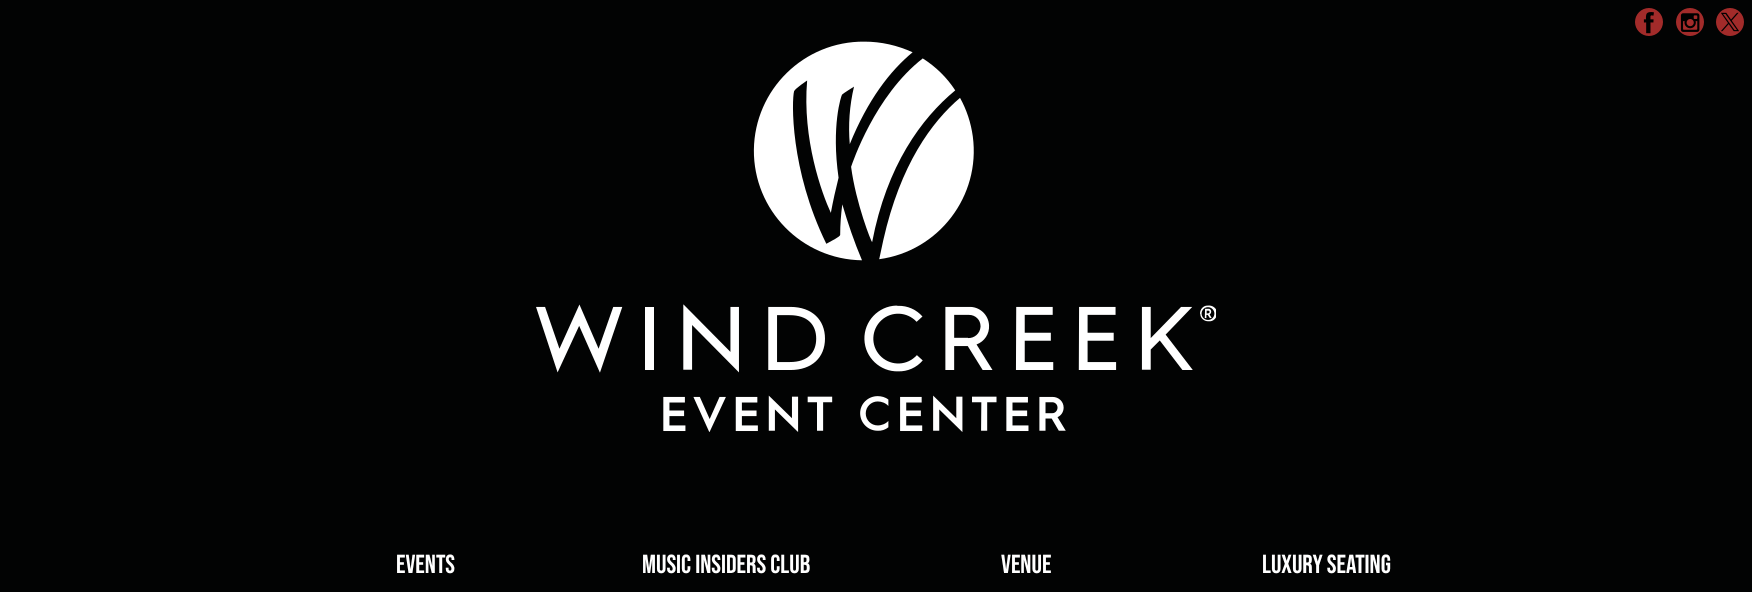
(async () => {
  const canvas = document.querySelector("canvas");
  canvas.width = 1752;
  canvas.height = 592;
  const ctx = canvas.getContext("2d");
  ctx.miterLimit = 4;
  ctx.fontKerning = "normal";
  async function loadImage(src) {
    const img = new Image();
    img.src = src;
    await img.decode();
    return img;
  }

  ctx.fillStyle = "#020303";
  ctx.fillRect(0, 0, 1752, 592);
  ctx.drawImage(await loadImage("img/1.png"), 1635, 8, 28, 28);
  ctx.drawImage(await loadImage("img/2.png"), 1676, 8, 28, 28);
  ctx.drawImage(await loadImage("img/3.png"), 1716, 8, 28, 28);
  ctx.drawImage(await loadImage("img/4.png"), 536, 41, 680, 391);
  ctx.font = "26px Bebas Neue";
  ctx.fillStyle = "#ffffff";
  for (const [text, x, y] of [
    ["Events", 396, 573],
    ["Music Insiders Club", 642, 573],
    ["Venue", 1001, 573],
    ["Luxury Seating", 1262, 573],
  ]) {
    ctx.fillText(text, x, y);
  }
})();
